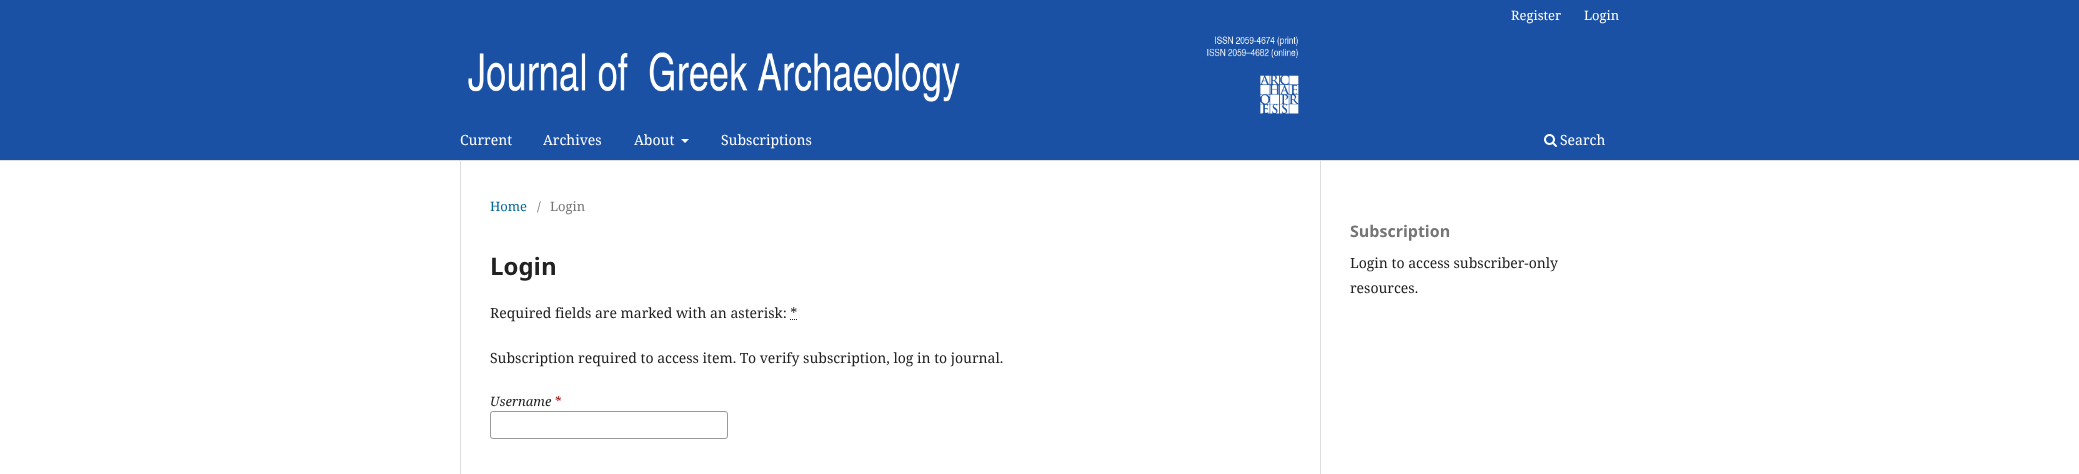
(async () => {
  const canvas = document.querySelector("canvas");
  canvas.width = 2079;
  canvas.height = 474;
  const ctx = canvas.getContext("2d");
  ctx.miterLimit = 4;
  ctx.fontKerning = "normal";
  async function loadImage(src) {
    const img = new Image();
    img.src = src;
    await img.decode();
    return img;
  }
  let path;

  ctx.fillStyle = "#ffffff";
  ctx.fillRect(0, 0, 2079, 474);
  ctx.fillStyle = "#1a51a4";
  ctx.fillRect(0, 0, 2079, 160);
  ctx.fillStyle = "#dddddd";
  ctx.fillRect(0, 160, 2079, 1);
  ctx.fillStyle = "#ffffff";
  path = new Path2D("M681 139H689L685 143Z");
  ctx.fill(path);
  ctx.drawImage(await loadImage("img/1.png"), 1544, 134, 13, 13);
  ctx.drawImage(await loadImage("img/2.png"), 468, 36, 831, 78);
  ctx.fillStyle = "#dddddd";
  ctx.fillRect(460, 161, 1, 313);
  path = new Path2D("M790 319.5H791M792 319.5H793M794 319.5H795M796 319.5H797");
  ctx.strokeStyle = "#212121";
  ctx.stroke(path);
  ctx.beginPath();
  ctx.roundRect(490.5, 411.5, 237, 27, 2.5);
  ctx.strokeStyle = "#999999";
  ctx.stroke();
  ctx.fillRect(1320, 161, 1, 313);
  ctx.font = "13px Noto Serif";
  ctx.fillStyle = "#ffffff";
  ctx.fillText("Register", 1511, 20);
  ctx.fillText("Login", 1584, 20);
  ctx.font = "14px Noto Serif";
  for (const [text, x, y] of [
    ["Current", 460, 145],
    ["Archives", 543, 145],
    ["About", 634, 145],
    ["Subscriptions", 721, 145],
    ["Search", 1560, 145],
  ]) {
    ctx.fillText(text, x, y);
  }
  ctx.font = "13px Noto Serif";
  ctx.fillStyle = "#006798";
  ctx.fillText("Home", 490, 211);
  ctx.fillStyle = "#757575";
  ctx.fillText("/", 537, 211);
  ctx.fillText("Login", 550, 211);
  ctx.font = "bold 24px Noto Sans";
  ctx.fillStyle = "#212121";
  ctx.fillText("Login", 490, 275);
  ctx.font = "14px Noto Serif";
  ctx.fillText("Required fields are marked with an asterisk: *", 490, 318);
  ctx.fillText("Subscription required to access item. To verify subscription, log in to journal.", 490, 363);
  ctx.font = "italic 13px Noto Serif";
  ctx.fillText("Username", 490, 406);
  ctx.fillStyle = "#a80000";
  ctx.fillText("*", 554, 406);
  ctx.font = "bold 16px Noto Sans";
  ctx.fillStyle = "#757575";
  ctx.fillText("Subscription", 1350, 237);
  ctx.font = "14px Noto Serif";
  ctx.fillStyle = "#212121";
  ctx.fillText("Login to access subscriber-only", 1350, 268);
  ctx.fillText("resources.", 1350, 293);
})();
